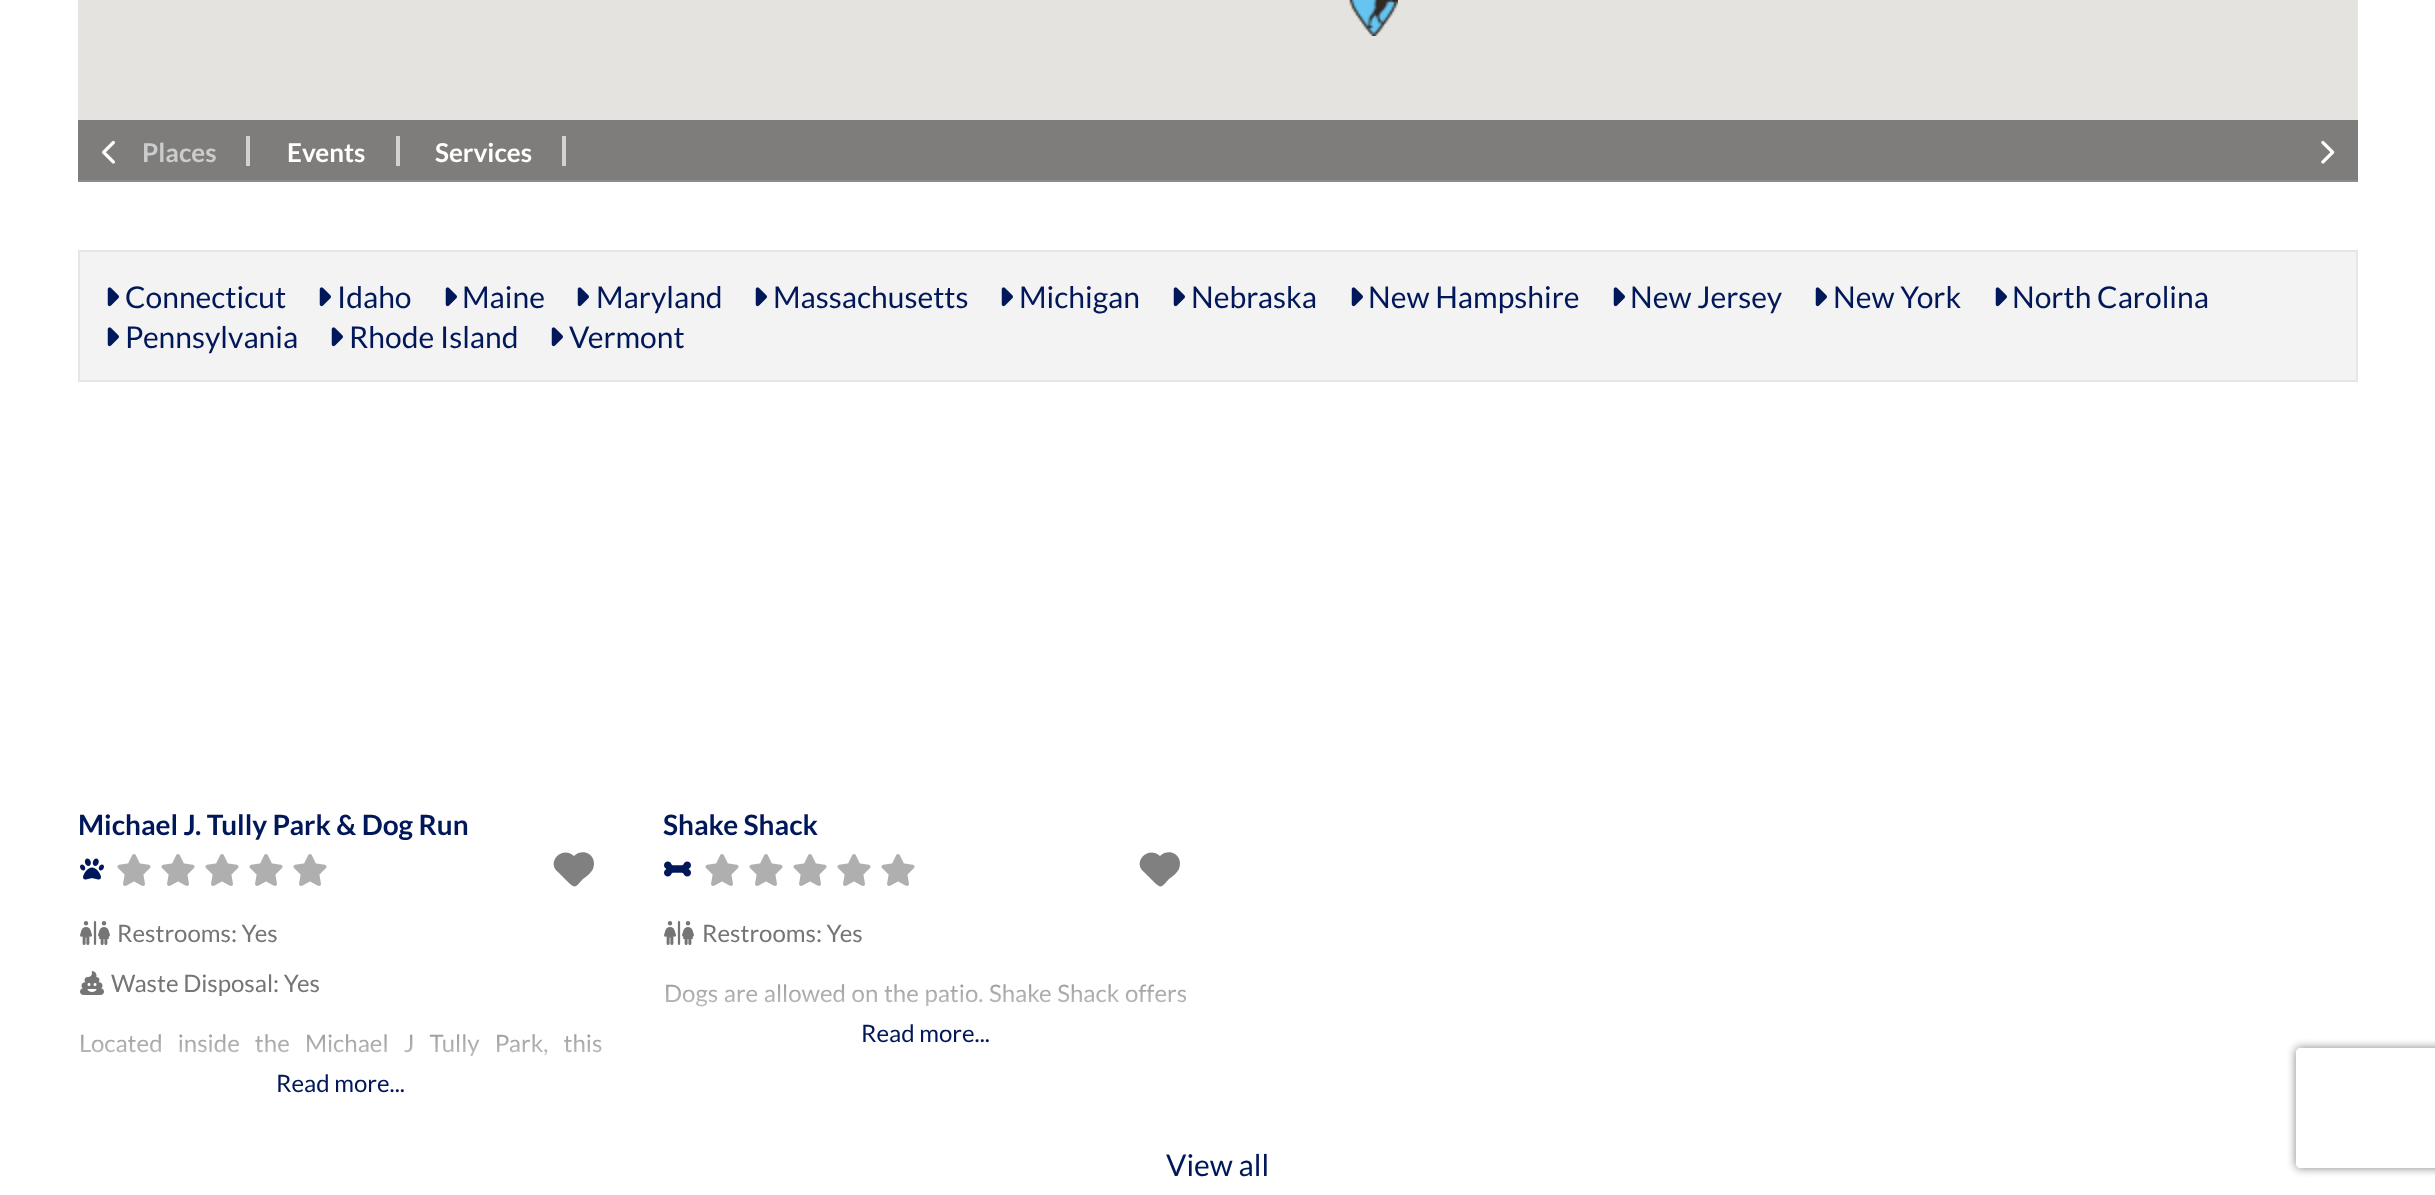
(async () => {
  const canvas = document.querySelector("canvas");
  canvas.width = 2435;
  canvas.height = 1195;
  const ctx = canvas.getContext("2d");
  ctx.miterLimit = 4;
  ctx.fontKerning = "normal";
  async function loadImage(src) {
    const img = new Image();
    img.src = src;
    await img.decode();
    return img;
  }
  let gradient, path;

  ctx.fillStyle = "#ffffff";
  ctx.fillRect(0, 0, 2435, 1195);
  for (const [x, y, w, h, color] of [
    [78, 180, 2280, 2, "#8c8c8c"],
    [78, 0, 2280, 120, "#e5e3df"],
    [78, 120, 2280, 60, "#7e7d7b"],
  ]) {
    ctx.fillStyle = color;
    ctx.fillRect(x, y, w, h);
  }
  ctx.drawImage(await loadImage("img/1.png"), 1349, 0, 49, 36);
  ctx.drawImage(await loadImage("img/2.png"), 102, 140, 13, 24);
  ctx.drawImage(await loadImage("img/3.png"), 2321, 140, 14, 24);
  for (const [x, y, w, h, color] of [
    [246, 136, 4, 30, "#d2d2d2"],
    [396, 136, 4, 30, "#d2d2d2"],
    [562, 136, 4, 30, "#d2d2d2"],
  ]) {
    ctx.fillStyle = color;
    ctx.fillRect(x, y, w, h);
  }
  ctx.fillStyle = "#f3f3f3";
  ctx.beginPath();
  ctx.rect(79, 251, 2278, 130);
  ctx.fill();
  ctx.strokeStyle = "#e6e6e6";
  ctx.lineWidth = 2;
  ctx.stroke();
  ctx.drawImage(await loadImage("img/4.png"), 107, 287, 12, 20);
  ctx.drawImage(await loadImage("img/4.png"), 319, 287, 12, 20);
  ctx.drawImage(await loadImage("img/4.png"), 445, 287, 12, 20);
  ctx.drawImage(await loadImage("img/4.png"), 577, 287, 12, 20);
  ctx.drawImage(await loadImage("img/4.png"), 755, 287, 12, 20);
  ctx.drawImage(await loadImage("img/4.png"), 1001, 287, 12, 20);
  ctx.drawImage(await loadImage("img/4.png"), 1173, 287, 12, 20);
  ctx.drawImage(await loadImage("img/4.png"), 1351, 287, 12, 20);
  ctx.drawImage(await loadImage("img/4.png"), 1613, 287, 12, 20);
  ctx.drawImage(await loadImage("img/4.png"), 1815, 287, 12, 20);
  ctx.drawImage(await loadImage("img/4.png"), 1995, 287, 12, 20);
  ctx.drawImage(await loadImage("img/4.png"), 107, 327, 12, 20);
  ctx.drawImage(await loadImage("img/4.png"), 331, 327, 12, 20);
  ctx.drawImage(await loadImage("img/4.png"), 551, 327, 12, 20);
  ctx.drawImage(await loadImage("img/5.png"), 80, 858, 24, 22);
  ctx.drawImage(await loadImage("img/6.png"), 117, 854, 34, 32);
  ctx.drawImage(await loadImage("img/6.png"), 161, 854, 34, 32);
  ctx.drawImage(await loadImage("img/6.png"), 205, 854, 34, 32);
  ctx.drawImage(await loadImage("img/6.png"), 249, 854, 34, 32);
  ctx.drawImage(await loadImage("img/6.png"), 293, 854, 34, 32);
  ctx.fillStyle = "#808080";
  path = new Path2D("M558 872L572 886L558 872L569 883C576 890 577 885 583 879C587 876 591 873 593 869C598 856 584 847 574 856C562 845 546 862 558 872Z");
  ctx.fill(path);
  ctx.drawImage(await loadImage("img/7.png"), 80, 921, 30, 24);
  ctx.drawImage(await loadImage("img/8.png"), 80, 971, 24, 24);
  ctx.drawImage(await loadImage("img/9.png"), 664, 861, 27, 16);
  ctx.drawImage(await loadImage("img/6.png"), 705, 854, 34, 32);
  ctx.drawImage(await loadImage("img/6.png"), 749, 854, 34, 32);
  ctx.drawImage(await loadImage("img/6.png"), 793, 854, 34, 32);
  ctx.drawImage(await loadImage("img/6.png"), 837, 854, 34, 32);
  ctx.drawImage(await loadImage("img/6.png"), 881, 854, 34, 32);
  path = new Path2D("M1144 872L1158 886L1144 872L1155 883C1162 890 1163 885 1169 879C1173 876 1177 873 1179 869C1184 856 1170 847 1160 856C1148 845 1132 862 1144 872Z");
  ctx.fill(path);
  ctx.drawImage(await loadImage("img/7.png"), 664, 921, 30, 24);
  ctx.save();
  path = new Path2D("M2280 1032H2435V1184H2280ZM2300 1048H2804C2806 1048 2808 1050 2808 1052V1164C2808 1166 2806 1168 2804 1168H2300C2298 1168 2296 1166 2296 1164V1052C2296 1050 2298 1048 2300 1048Z");
  ctx.clip(path, "evenodd");
  ctx.filter = "blur(5px)";
  ctx.beginPath();
  ctx.roundRect(2296, 1048, 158, 120, 4);
  ctx.fill();
  ctx.filter = "none";
  ctx.restore();
  ctx.font = "bold 26px Lato";
  ctx.fillStyle = "#cccccc";
  ctx.fillText("Places", 142, 162);
  ctx.fillStyle = "#ffffff";
  ctx.fillText("Events", 287, 162);
  ctx.fillText("Services", 435, 162);
  ctx.font = "30px Lato";
  ctx.fillStyle = "#001759";
  for (const [text, x, y] of [
    ["Connecticut", 125, 308],
    ["Idaho", 337, 308],
    ["Maine", 462, 308],
    ["Maryland", 596, 308],
    ["Massachusetts", 773, 308],
    ["Michigan", 1019, 308],
    ["Nebraska", 1191, 308],
    ["New Hampshire", 1368, 308],
    ["New Jersey", 1630, 308],
    ["New York", 1833, 308],
    ["North Carolina", 2012, 308],
    ["Pennsylvania", 125, 348],
    ["Rhode Island", 349, 348],
    ["Vermont", 569, 348],
  ]) {
    ctx.fillText(text, x, y);
  }
  ctx.font = "bold 28px Lato";
  ctx.fillText("Michael J. Tully Park & Dog Run", 78, 835);
  ctx.font = "24px Lato";
  ctx.fillStyle = "#757575";
  ctx.fillText("Restrooms: Yes", 117, 942);
  ctx.fillText("Waste Disposal: Yes", 111, 992);
  ctx.wordSpacing = "10.5px";
  ctx.fillText("Located inside the Michael J Tully Park, this", 79, 1052);
  gradient = ctx.createLinearGradient(340, 1004, 340, 1104);
  gradient.addColorStop(0, "rgba(255, 255, 255, 0)");
  gradient.addColorStop(1, "#ffffff");
  ctx.fillStyle = gradient;
  ctx.fillRect(80, 1034, 522, 23);
  ctx.wordSpacing = "0px";
  ctx.fillStyle = "#001759";
  ctx.fillText("Read more...", 276, 1092);
  ctx.font = "bold 28px Lato";
  ctx.fillText("Shake Shack", 663, 835);
  ctx.font = "24px Lato";
  ctx.fillStyle = "#757575";
  ctx.fillText("Restrooms: Yes", 702, 942);
  ctx.wordSpacing = "1px";
  ctx.fillText("Dogs are allowed on the patio. Shake Shack offers", 664, 1002);
  gradient = ctx.createLinearGradient(926, 954, 926, 1054);
  gradient.addColorStop(0, "rgba(255, 255, 255, 0)");
  gradient.addColorStop(1, "#ffffff");
  ctx.fillStyle = gradient;
  ctx.fillRect(665, 984, 522, 23);
  ctx.wordSpacing = "0px";
  ctx.fillStyle = "#001759";
  ctx.fillText("Read more...", 861, 1042);
  ctx.font = "30px Lato";
  ctx.fillText("View all", 1166, 1176);
})();
